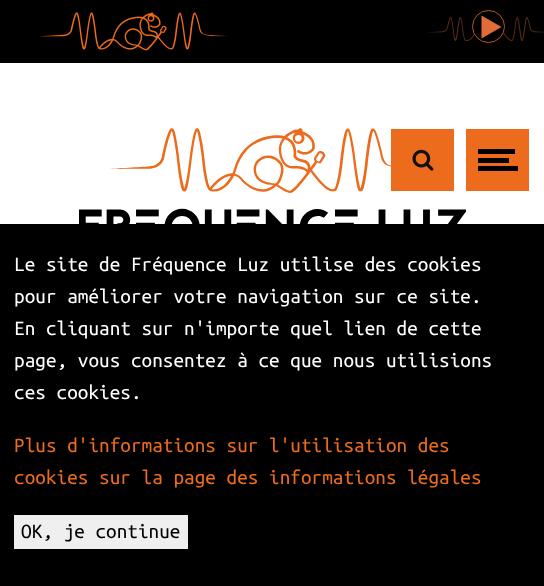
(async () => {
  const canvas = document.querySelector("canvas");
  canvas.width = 544;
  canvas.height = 586;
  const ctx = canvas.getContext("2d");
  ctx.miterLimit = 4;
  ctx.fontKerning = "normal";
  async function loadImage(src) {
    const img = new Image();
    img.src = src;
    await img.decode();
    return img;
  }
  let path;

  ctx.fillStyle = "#ffffff";
  ctx.fillRect(0, 0, 544, 586);
  ctx.fillStyle = "#000000";
  ctx.fillRect(0, 0, 544, 63);
  ctx.drawImage(await loadImage("img/1.png"), 40, 12, 188, 39);
  ctx.beginPath();
  ctx.arc(488.5, 26.5, 16, 0, Math.PI * 2);
  ctx.strokeStyle = "#e16c37";
  ctx.lineWidth = 0.8;
  ctx.stroke();
  ctx.fillStyle = "#e16c37";
  path = new Path2D("M481.5 38.5L501.5 27L481.5 15.5Z");
  ctx.fill(path);
  ctx.drawImage(await loadImage("img/2.png"), 427, 17, 117, 24);
  ctx.drawImage(await loadImage("img/3.png"), 79, 128, 387, 96);
  ctx.fillStyle = "#ec6b1c";
  ctx.fillRect(391, 129, 63, 62);
  ctx.drawImage(await loadImage("img/4.png"), 412, 149, 22, 22);
  for (const [x, y, w, h, color] of [
    [466, 129, 63, 62, "#ec6b1c"],
    [478, 149, 37, 5, "#000000"],
    [478, 158, 31, 5, "#000000"],
    [478, 166, 40, 5, "#000000"],
    [0, 224, 544, 362, "#000000"],
    [14, 515, 174, 34, "#efefef"],
  ]) {
    ctx.fillStyle = color;
    ctx.fillRect(x, y, w, h);
  }
  ctx.font = "21.25px Ubuntu Mono";
  ctx.fillStyle = "#ffffff";
  for (const [text, x, y] of [
    ["Le site de Fréquence Luz utilise des cookies", 14, 271],
    ["pour améliorer votre navigation sur ce site.", 14, 303],
    ["En cliquant sur n'importe quel lien de cette", 14, 335],
    ["page, vous consentez à ce que nous utilisions", 14, 367],
    ["ces cookies.", 14, 399],
  ]) {
    ctx.fillText(text, x, y);
  }
  ctx.fillStyle = "#ec6b1c";
  ctx.fillText("Plus d'informations sur l'utilisation des", 14, 452);
  ctx.fillText("cookies sur la page des informations légales", 14, 484);
  ctx.fillStyle = "#000000";
  ctx.fillText("OK, je continue", 21, 538);
})();
